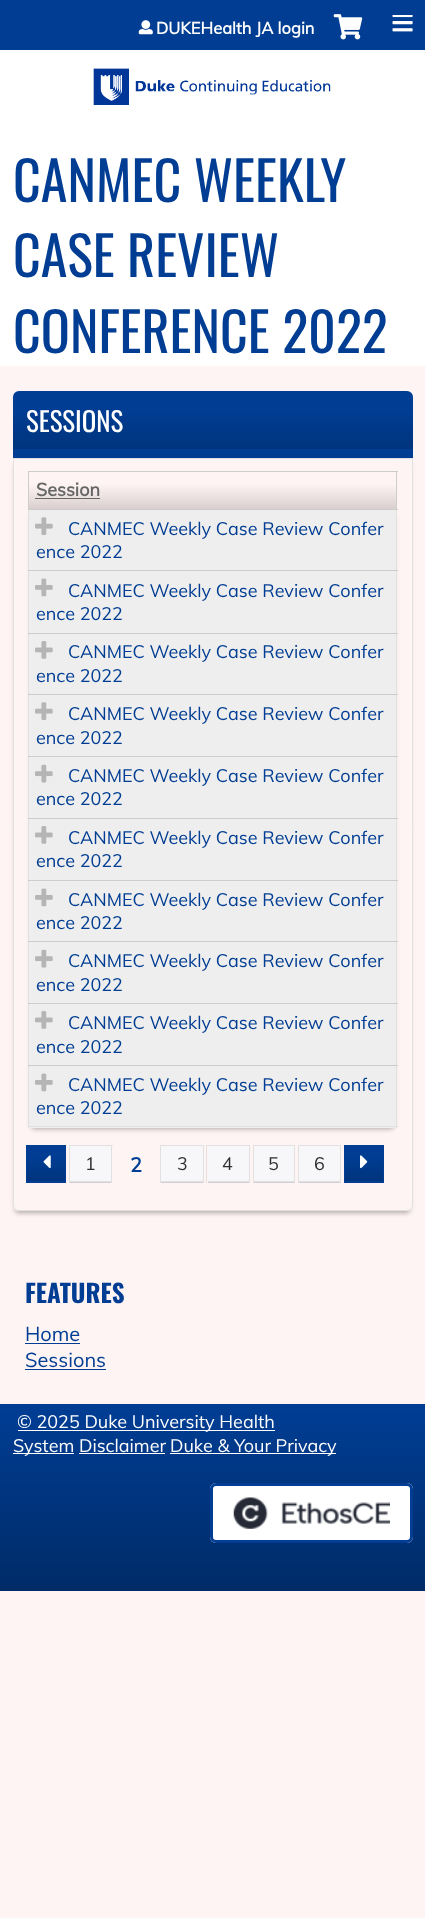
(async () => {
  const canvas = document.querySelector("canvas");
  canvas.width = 425;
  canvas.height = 1918;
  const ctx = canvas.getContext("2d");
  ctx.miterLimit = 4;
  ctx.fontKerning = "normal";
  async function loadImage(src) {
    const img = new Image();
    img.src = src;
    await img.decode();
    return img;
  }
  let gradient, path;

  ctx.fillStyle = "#fff4f4";
  ctx.fillRect(0, 0, 425, 1918);
  ctx.fillStyle = "#ffffff";
  ctx.fillRect(0, 50, 425, 316);
  ctx.fillStyle = "#003d93";
  ctx.fillRect(0, 0, 425, 50);
  ctx.drawImage(await loadImage("img/1.png"), 138, 20, 15, 15);
  ctx.drawImage(await loadImage("img/2.png"), 333, 14, 30, 26);
  ctx.drawImage(await loadImage("img/3.png"), 392, 15, 21, 17);
  ctx.drawImage(await loadImage("img/4.png"), 93, 68, 238, 37);
  ctx.beginPath();
  ctx.roundRect(13, 391, 400, 67, [6, 6, 0, 0]);
  ctx.fill();
  gradient = ctx.createLinearGradient(213, 449, 213, 391);
  gradient.addColorStop(0, "rgba(0, 0, 0, 0.15)");
  gradient.addColorStop(0.7, "rgba(0, 0, 0, 0)");
  ctx.fillStyle = gradient;
  ctx.fillRect(13, 414, 400, 35);
  ctx.save();
  path = new Path2D("M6 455H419V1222H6ZM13 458H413V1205C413 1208.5 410.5 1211 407 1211H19C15.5 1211 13 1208.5 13 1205Z");
  ctx.clip(path, "evenodd");
  ctx.fillStyle = "rgba(0, 0, 0, 0.3)";
  ctx.filter = "blur(2.5px)";
  ctx.beginPath();
  ctx.roundRect(15, 464, 395, 749, 4);
  ctx.fill();
  ctx.filter = "none";
  ctx.restore();
  ctx.beginPath();
  ctx.roundRect(13.5, 458.5, 399, 752, [0, 0, 5.5, 5.5]);
  ctx.strokeStyle = "#e1e1e1";
  ctx.stroke();
  ctx.fillStyle = "#cccccc";
  ctx.fillRect(28, 471, 370, 1);
  ctx.fillStyle = "rgba(0, 0, 0, 0.3)";
  ctx.filter = "blur(2.5px)";
  ctx.beginPath();
  ctx.roundRect(31, 515, 363, 614, 4);
  ctx.fill();
  ctx.filter = "none";
  for (const [x, y, w, h, color] of [
    [396, 509, 1, 619, "#e1e1e1"],
    [396, 471, 1, 39, "#cccccc"],
    [29, 1066, 367, 62, "#eeeeee"],
    [28, 1126, 370, 1, "#e1e1e1"],
    [28, 509, 1, 619, "#e1e1e1"],
    [28, 509, 370, 1, "#cccccc"],
    [28, 471, 1, 39, "#cccccc"],
  ]) {
    ctx.fillStyle = color;
    ctx.fillRect(x, y, w, h);
  }
  gradient = ctx.createLinearGradient(213, 509, 213, 473);
  gradient.addColorStop(0, "#d9cfcf");
  gradient.addColorStop(0.7, "#fff4f4");
  ctx.fillStyle = gradient;
  ctx.beginPath();
  ctx.roundRect(29, 473, 367, 36, [6, 0, 0, 0]);
  ctx.fill();
  ctx.fillStyle = "#666666";
  ctx.fillRect(35, 498, 65, 1);
  ctx.fillStyle = "#eeeeee";
  ctx.fillRect(29, 510, 367, 60);
  ctx.drawImage(await loadImage("img/5.png"), 35, 517, 18, 18);
  ctx.fillRect(29, 571, 367, 62);
  ctx.fillStyle = "#cccccc";
  ctx.fillRect(28, 570, 370, 1);
  ctx.drawImage(await loadImage("img/6.png"), 35, 578, 18, 19);
  ctx.fillRect(28, 633, 370, 1);
  ctx.fillStyle = "#eeeeee";
  ctx.fillRect(29, 634, 367, 60);
  ctx.drawImage(await loadImage("img/7.png"), 35, 641, 18, 18);
  ctx.fillRect(29, 695, 367, 61);
  ctx.fillStyle = "#cccccc";
  ctx.fillRect(28, 694, 370, 1);
  ctx.drawImage(await loadImage("img/5.png"), 35, 702, 18, 18);
  ctx.fillRect(28, 756, 370, 1);
  ctx.fillStyle = "#eeeeee";
  ctx.fillRect(29, 757, 367, 61);
  ctx.drawImage(await loadImage("img/8.png"), 35, 764, 18, 19);
  ctx.fillRect(29, 819, 367, 61);
  ctx.fillStyle = "#cccccc";
  ctx.fillRect(28, 818, 370, 1);
  ctx.drawImage(await loadImage("img/7.png"), 35, 826, 18, 18);
  ctx.fillRect(28, 880, 370, 1);
  ctx.fillStyle = "#eeeeee";
  ctx.fillRect(29, 881, 367, 60);
  ctx.drawImage(await loadImage("img/6.png"), 35, 888, 18, 19);
  ctx.fillRect(29, 942, 367, 61);
  ctx.fillStyle = "#cccccc";
  ctx.fillRect(28, 941, 370, 1);
  ctx.drawImage(await loadImage("img/8.png"), 35, 949, 18, 19);
  ctx.fillRect(28, 1003, 370, 1);
  ctx.fillStyle = "#eeeeee";
  ctx.fillRect(29, 1004, 367, 61);
  ctx.drawImage(await loadImage("img/7.png"), 35, 1011, 18, 18);
  ctx.fillStyle = "#cccccc";
  ctx.fillRect(28, 1065, 370, 1);
  ctx.drawImage(await loadImage("img/6.png"), 35, 1073, 18, 19);
  ctx.fillStyle = "#003d93";
  ctx.fillRect(27, 1181, 38, 1);
  gradient = ctx.createLinearGradient(46, 1181, 46, 1146);
  gradient.addColorStop(0, "#00347d");
  gradient.addColorStop(0.7, "#003d93");
  ctx.fillStyle = gradient;
  ctx.fillRect(27, 1146, 38, 35);
  ctx.strokeStyle = "#003d93";
  ctx.strokeRect(26.5, 1145.5, 39, 37);
  ctx.drawImage(await loadImage("img/9.png"), 43, 1155, 8, 14);
  gradient = ctx.createLinearGradient(91, 1183, 91, 1146);
  gradient.addColorStop(0, "#c6c6c8");
  gradient.addColorStop(0.07, "#f7f7fa");
  ctx.fillStyle = gradient;
  ctx.fillRect(70, 1146, 41, 37);
  for (const [x, y, w, h, color] of [
    [69, 1145, 44, 1, "#e1e1e1"],
    [111, 1145, 1, 38, "#e1e1e1"],
    [69, 1145, 1, 38, "#e1e1e1"],
  ]) {
    ctx.fillStyle = color;
    ctx.fillRect(x, y, w, h);
  }
  gradient = ctx.createLinearGradient(182, 1183, 182, 1146);
  gradient.addColorStop(0, "#c6c6c8");
  gradient.addColorStop(0.07, "#f7f7fa");
  ctx.fillStyle = gradient;
  ctx.fillRect(161, 1146, 42, 37);
  for (const [x, y, w, h, color] of [
    [160, 1145, 44, 1, "#e1e1e1"],
    [203, 1145, 1, 38, "#e1e1e1"],
    [160, 1145, 1, 38, "#e1e1e1"],
  ]) {
    ctx.fillStyle = color;
    ctx.fillRect(x, y, w, h);
  }
  gradient = ctx.createLinearGradient(228, 1183, 228, 1146);
  gradient.addColorStop(0, "#c6c6c8");
  gradient.addColorStop(0.07, "#f7f7fa");
  ctx.fillStyle = gradient;
  ctx.fillRect(208, 1146, 41, 37);
  for (const [x, y, w, h, color] of [
    [206, 1145, 44, 1, "#e1e1e1"],
    [249, 1145, 1, 38, "#e1e1e1"],
    [206, 1145, 1, 38, "#e1e1e1"],
  ]) {
    ctx.fillStyle = color;
    ctx.fillRect(x, y, w, h);
  }
  gradient = ctx.createLinearGradient(274, 1183, 274, 1146);
  gradient.addColorStop(0, "#c6c6c8");
  gradient.addColorStop(0.07, "#f7f7fa");
  ctx.fillStyle = gradient;
  ctx.fillRect(254, 1146, 40, 37);
  for (const [x, y, w, h, color] of [
    [253, 1145, 42, 1, "#e1e1e1"],
    [294, 1145, 1, 38, "#e1e1e1"],
    [253, 1145, 1, 38, "#e1e1e1"],
  ]) {
    ctx.fillStyle = color;
    ctx.fillRect(x, y, w, h);
  }
  gradient = ctx.createLinearGradient(319, 1183, 319, 1146);
  gradient.addColorStop(0, "#c6c6c8");
  gradient.addColorStop(0.07, "#f7f7fa");
  ctx.fillStyle = gradient;
  ctx.fillRect(299, 1146, 41, 37);
  for (const [x, y, w, h, color] of [
    [298, 1145, 43, 1, "#e1e1e1"],
    [340, 1145, 1, 38, "#e1e1e1"],
    [298, 1145, 1, 38, "#e1e1e1"],
    [345, 1181, 38, 1, "#003d93"],
  ]) {
    ctx.fillStyle = color;
    ctx.fillRect(x, y, w, h);
  }
  gradient = ctx.createLinearGradient(364, 1181, 364, 1146);
  gradient.addColorStop(0, "#00347d");
  gradient.addColorStop(0.7, "#003d93");
  ctx.fillStyle = gradient;
  ctx.fillRect(345, 1146, 38, 35);
  ctx.strokeRect(344.5, 1145.5, 39, 37);
  ctx.drawImage(await loadImage("img/10.png"), 360, 1155, 8, 14);
  ctx.fillStyle = "#003d93";
  ctx.fillRect(25, 1343, 55, 1);
  ctx.fillRect(25, 1369, 81, 1);
  gradient = ctx.createLinearGradient(213, 1591, 213, 1411);
  gradient.addColorStop(0, "#002b67");
  gradient.addColorStop(1, "#003d93");
  ctx.fillStyle = gradient;
  ctx.fillRect(0, 1411, 425, 180);
  for (const [x, y, w, h, color] of [
    [0, 1404, 425, 7, "#003d93"],
    [18, 1430, 257, 1, "#ffffff"],
    [13, 1453, 61, 1, "#ffffff"],
    [170, 1453, 166, 1, "#ffffff"],
    [79, 1453, 86, 1, "#ffffff"],
  ]) {
    ctx.fillStyle = color;
    ctx.fillRect(x, y, w, h);
  }
  ctx.beginPath();
  ctx.roundRect(210, 1483, 203, 60, 6);
  ctx.fill();
  ctx.drawImage(await loadImage("img/11.png"), 233, 1497, 157, 32);
  ctx.beginPath();
  ctx.roundRect(211.5, 1484.5, 200, 57, 4.5);
  ctx.lineWidth = 3;
  ctx.stroke();
  ctx.font = "bold 16.5px Muli";
  ctx.fillText("DUKEHealth JA login", 156, 34);
  ctx.font = "54px Oswald";
  ctx.fillStyle = "#003d93";
  for (const [text, x, y] of [
    ["CANMEC WEEKLY", 13, 202],
    ["CASE REVIEW", 13, 277],
    ["CONFERENCE 2022", 13, 353],
  ]) {
    ctx.fillText(text, x, y);
  }
  ctx.font = "27px Oswald";
  ctx.fillStyle = "#ffffff";
  ctx.fillText("SESSIONS", 26, 432);
  ctx.font = "bold 18px Muli";
  ctx.fillStyle = "#666666";
  ctx.fillText("Session", 36, 496);
  ctx.font = "18px Muli";
  ctx.fillStyle = "#003d93";
  for (const [text, x, y] of [
    ["CANMEC Weekly Case Review Confer", 68, 535],
    ["ence 2022", 36, 558],
    ["CANMEC Weekly Case Review Confer", 68, 597],
    ["ence 2022", 36, 620],
    ["CANMEC Weekly Case Review Confer", 68, 658],
    ["ence 2022", 36, 682],
    ["CANMEC Weekly Case Review Confer", 68, 720],
    ["ence 2022", 36, 744],
    ["CANMEC Weekly Case Review Confer", 68, 782],
    ["ence 2022", 36, 805],
    ["CANMEC Weekly Case Review Confer", 68, 844],
    ["ence 2022", 36, 867],
    ["CANMEC Weekly Case Review Confer", 68, 906],
    ["ence 2022", 36, 929],
    ["CANMEC Weekly Case Review Confer", 68, 967],
    ["ence 2022", 36, 991],
    ["CANMEC Weekly Case Review Confer", 68, 1029],
    ["ence 2022", 36, 1053],
    ["CANMEC Weekly Case Review Confer", 68, 1091],
    ["ence 2022", 36, 1114],
  ]) {
    ctx.fillText(text, x, y);
  }
  ctx.fillStyle = "#2f2f2f";
  ctx.fillText("1", 85, 1170);
  ctx.font = "bold 20px Muli";
  ctx.fillStyle = "#003d93";
  ctx.fillText("2", 130, 1172);
  ctx.font = "18px Muli";
  ctx.fillStyle = "#2f2f2f";
  for (const [text, x, y] of [
    ["3", 177, 1170],
    ["4", 222, 1170],
    ["5", 268, 1170],
    ["6", 314, 1170],
  ]) {
    ctx.fillText(text, x, y);
  }
  ctx.font = "bold 25px Oswald";
  ctx.fillStyle = "#003d93";
  ctx.fillText("FEATURES", 25, 1303);
  ctx.font = "20px Muli";
  ctx.fillText("Home", 25, 1341);
  ctx.fillText("Sessions", 25, 1367);
  ctx.font = "18px Muli";
  ctx.fillStyle = "#ffffff";
  for (const [text, x, y] of [
    ["© 2025 Duke University Health", 17, 1428],
    ["System Disclaimer", 13, 1452],
    ["Duke & Your Privacy", 170, 1452],
  ]) {
    ctx.fillText(text, x, y);
  }
})();
